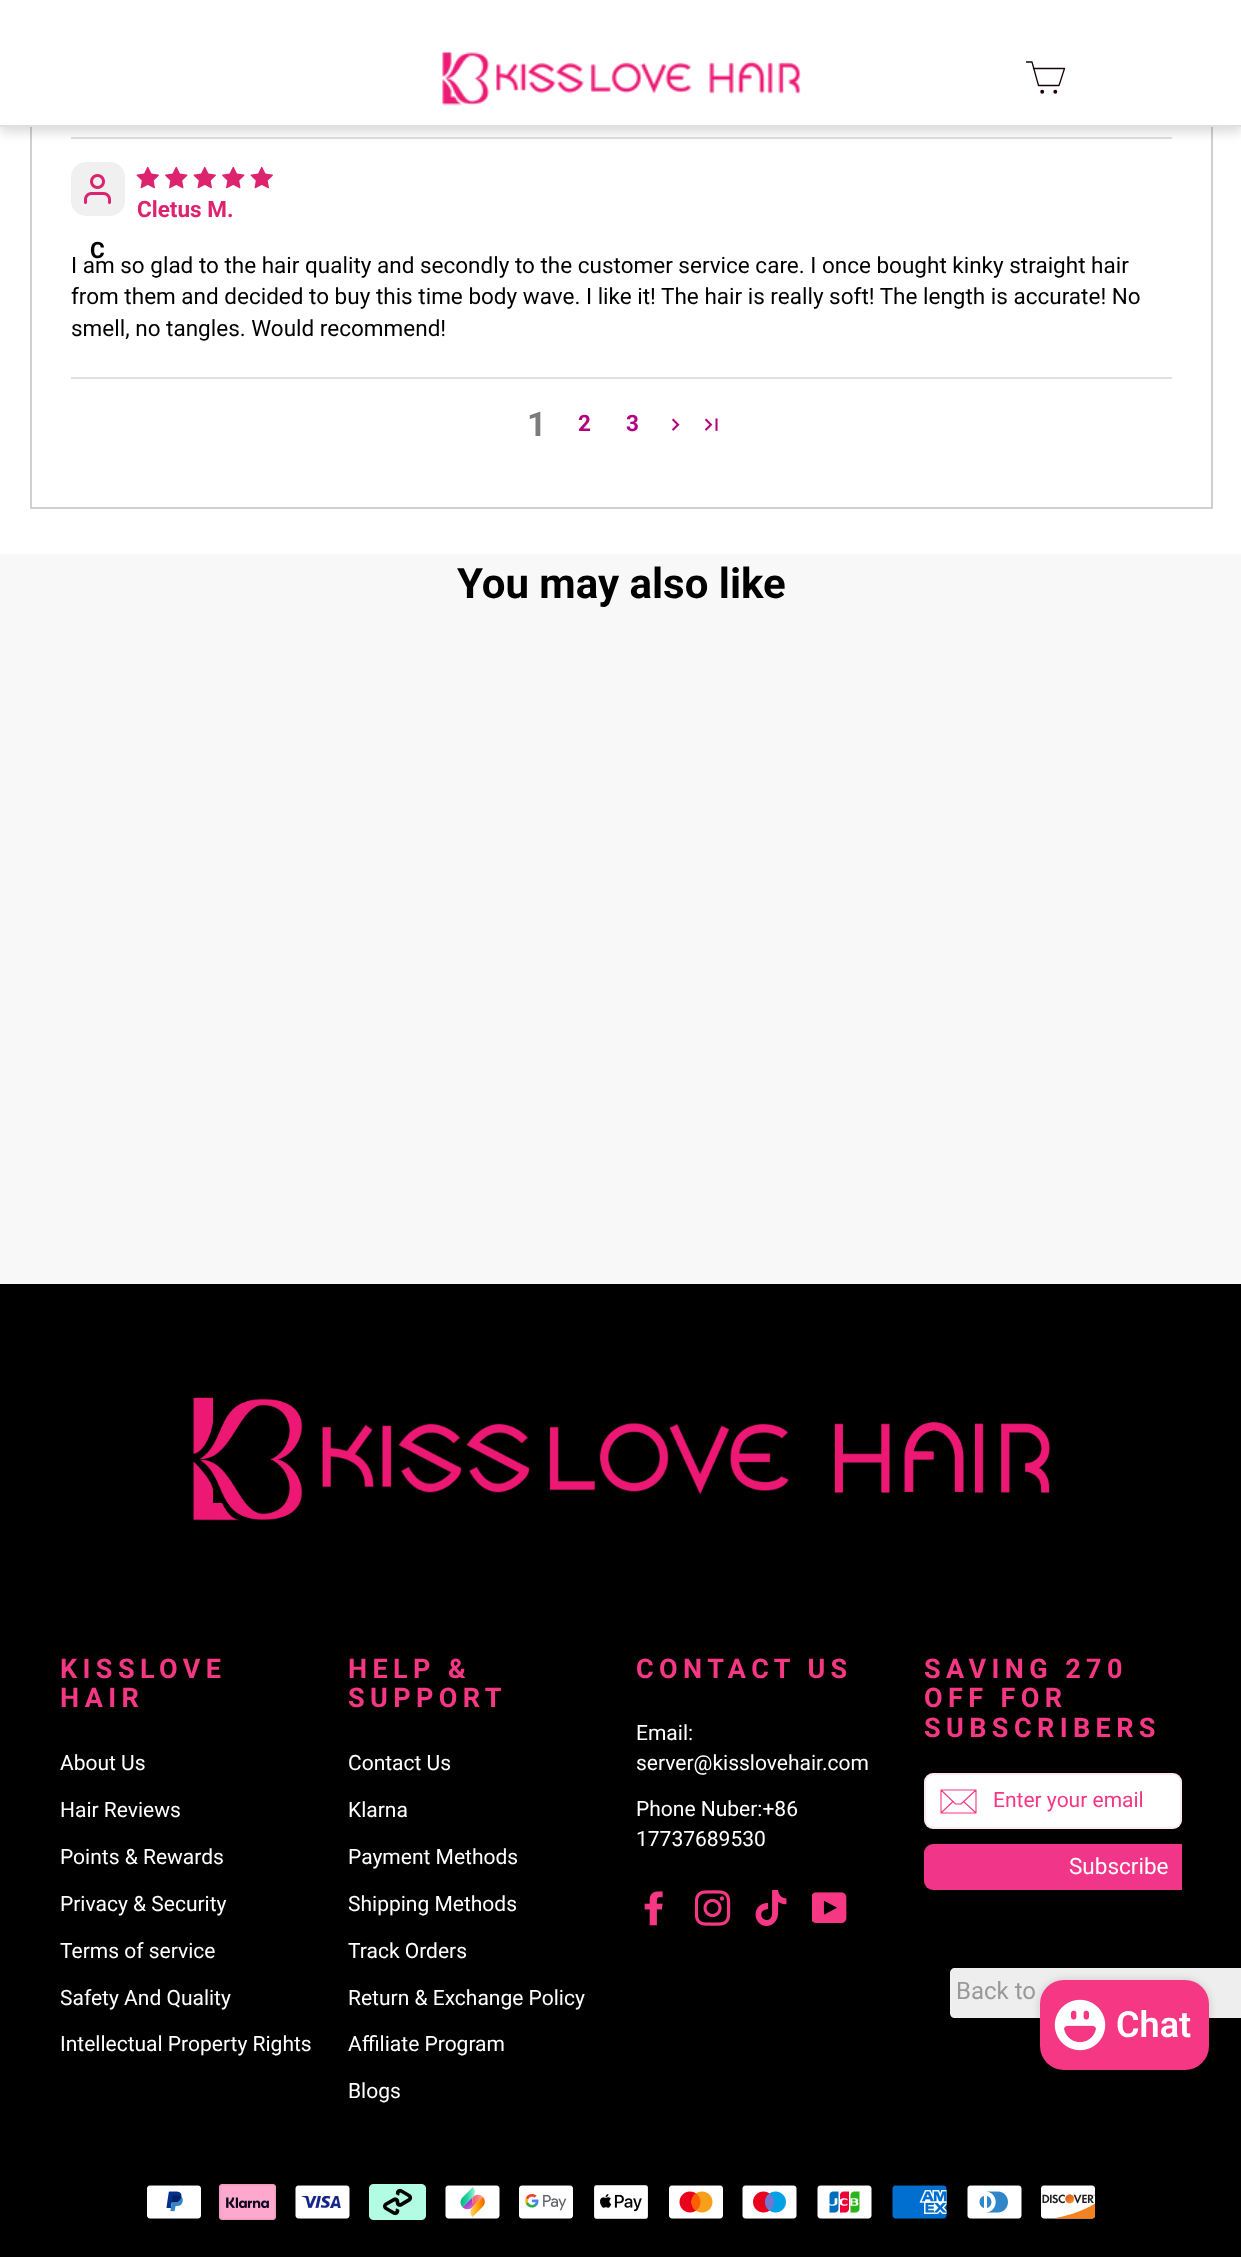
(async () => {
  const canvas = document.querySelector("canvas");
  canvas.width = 1241;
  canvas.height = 2257;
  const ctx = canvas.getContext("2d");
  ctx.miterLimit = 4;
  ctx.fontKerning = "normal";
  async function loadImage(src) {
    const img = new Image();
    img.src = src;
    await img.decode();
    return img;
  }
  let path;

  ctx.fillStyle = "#f8f8f8";
  ctx.fillRect(0, 0, 1241, 2257);
  for (const [x, y, w, h, color] of [
    [0, 127, 1241, 427, "#ffffff"],
    [1211, 127, 2, 382, "#d0d0d0"],
    [30, 507, 1182, 2, "#d0d0d0"],
    [30, 127, 2, 382, "#d0d0d0"],
    [71, 137, 1101, 2, "#e2dfe0"],
  ]) {
    ctx.fillStyle = color;
    ctx.fillRect(x, y, w, h);
  }
  ctx.fillStyle = "rgba(0, 0, 0, 0.15)";
  ctx.filter = "blur(6px)";
  ctx.beginPath();
  ctx.rect(0, 6, 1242, 126);
  ctx.fill();
  ctx.filter = "none";
  ctx.fillStyle = "#ffffff";
  ctx.fillRect(0, 0, 1241, 125);
  ctx.fillStyle = "#e2dfe0";
  ctx.fillRect(0, 125, 1241, 2);
  ctx.drawImage(await loadImage("img/1.png"), 442, 51, 359, 55);
  path = new Path2D("M1033.5 68.5H1064.5L1059 85.5H1038.5L1032 62H1026.5");
  ctx.strokeStyle = "#19010e";
  ctx.lineWidth = 1.3;
  ctx.lineCap = "round";
  ctx.lineJoin = "round";
  ctx.stroke(path);
  ctx.fillStyle = "#19010e";
  ctx.beginPath();
  ctx.arc(1042.2, 91.8, 1.3, 0, Math.PI * 2);
  ctx.fill();
  ctx.stroke();
  ctx.beginPath();
  ctx.arc(1055.3, 91.8, 1.3, 0, Math.PI * 2);
  ctx.fill();
  ctx.stroke();
  ctx.drawImage(await loadImage("img/2.png"), 136, 166, 23, 23);
  ctx.drawImage(await loadImage("img/3.png"), 165, 166, 23, 23);
  ctx.drawImage(await loadImage("img/2.png"), 193, 166, 23, 23);
  ctx.drawImage(await loadImage("img/3.png"), 222, 166, 23, 23);
  ctx.drawImage(await loadImage("img/2.png"), 250, 166, 23, 23);
  ctx.fillStyle = "#f0f0f0";
  ctx.beginPath();
  ctx.roundRect(71, 162, 54, 54, 15);
  ctx.fill();
  ctx.drawImage(await loadImage("img/4.png"), 84, 174, 27, 30);
  ctx.fillStyle = "#e2dfe0";
  ctx.fillRect(71, 377, 1101, 2);
  ctx.drawImage(await loadImage("img/5.png"), 671, 418, 9, 13);
  ctx.drawImage(await loadImage("img/6.png"), 704, 418, 14, 13);
  ctx.fillStyle = "#000000";
  ctx.fillRect(0, 1284, 1241, 973);
  ctx.drawImage(await loadImage("img/7.png"), 193, 1397, 857, 124);
  ctx.drawImage(await loadImage("img/8.png"), 644, 1891, 19, 35);
  ctx.drawImage(await loadImage("img/9.png"), 695, 1890, 36, 36);
  ctx.drawImage(await loadImage("img/10.png"), 755, 1890, 32, 36);
  ctx.drawImage(await loadImage("img/11.png"), 812, 1892, 35, 31);
  ctx.fillStyle = "#ffffff";
  ctx.beginPath();
  ctx.roundRect(924, 1773, 258, 56, 9);
  ctx.fill();
  ctx.beginPath();
  ctx.roundRect(925, 1774, 256, 54, 8);
  ctx.strokeStyle = "rgba(245, 55, 132, 0.12)";
  ctx.lineWidth = 2;
  ctx.lineJoin = "miter";
  ctx.stroke();
  path = new Path2D("M976 1813H941V1790H976ZM941 1790L955.5 1804H961L976 1790M953 1801.5L941.5 1812.5M975.5 1812.5L963.5 1801.5");
  ctx.strokeStyle = "#f53784";
  ctx.lineWidth = 1.1;
  ctx.lineJoin = "round";
  ctx.stroke(path);
  ctx.fillStyle = "#f13589";
  ctx.beginPath();
  ctx.roundRect(924, 1844, 258, 46, [9, 0, 0, 9]);
  ctx.fill();
  ctx.drawImage(await loadImage("img/12.png"), 147, 2185, 54, 34);
  ctx.drawImage(await loadImage("img/13.png"), 219, 2184, 57, 36);
  ctx.drawImage(await loadImage("img/14.png"), 295, 2185, 55, 34);
  ctx.drawImage(await loadImage("img/15.png"), 369, 2184, 57, 36);
  ctx.drawImage(await loadImage("img/16.png"), 445, 2185, 55, 34);
  ctx.drawImage(await loadImage("img/17.png"), 519, 2185, 54, 34);
  ctx.drawImage(await loadImage("img/18.png"), 594, 2185, 54, 34);
  ctx.drawImage(await loadImage("img/19.png"), 669, 2185, 54, 34);
  ctx.drawImage(await loadImage("img/20.png"), 742, 2185, 55, 34);
  ctx.drawImage(await loadImage("img/21.png"), 817, 2185, 55, 34);
  ctx.drawImage(await loadImage("img/22.png"), 892, 2185, 55, 34);
  ctx.drawImage(await loadImage("img/23.png"), 967, 2185, 55, 34);
  ctx.drawImage(await loadImage("img/24.png"), 1041, 2185, 55, 34);
  ctx.fillStyle = "#eeeeee";
  path = new Path2D("M955 1968H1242V2018H955C952 2018 950 2016 950 2013V1973C950 1970 952 1968 955 1968Z");
  ctx.fill(path);
  ctx.fillStyle = "rgba(0, 0, 0, 0.15)";
  ctx.filter = "blur(4px)";
  ctx.beginPath();
  ctx.roundRect(1040, 1980, 169, 90, 24);
  ctx.fill();
  ctx.filter = "none";
  ctx.fillStyle = "#f53784";
  ctx.beginPath();
  ctx.roundRect(1040, 1980, 169, 90, 24);
  ctx.fill();
  ctx.drawImage(await loadImage("img/25.png"), 1054, 1999, 52, 52);
  ctx.font = "bold 22.5px Roboto";
  ctx.fillStyle = "#dc236e";
  ctx.fillText("Cletus M.", 137, 217);
  ctx.fillStyle = "#000000";
  ctx.fillText("C", 90, 258);
  ctx.font = "22.5px Roboto";
  for (const [text, x, y] of [
    ["I am so glad to the hair quality and secondly to the customer service care. I once bought kinky straight hair", 71, 273],
    ["from them and decided to buy this time body wave. I like it! The hair is really soft! The length is accurate! No", 71, 304],
    ["smell, no tangles. Would recommend!", 71, 336],
  ]) {
    ctx.fillText(text, x, y);
  }
  ctx.font = "bold 34px Roboto";
  ctx.fillStyle = "#7b7b7b";
  ctx.fillText("1", 527, 436);
  ctx.font = "bold 22.5px Roboto";
  ctx.fillStyle = "#b4007e";
  ctx.fillText("2", 578, 431);
  ctx.fillText("3", 626, 431);
  ctx.font = "bold 42px Roboto";
  ctx.fillStyle = "#000000";
  ctx.fillText("You may also like", 457, 598);
  ctx.letterSpacing = "5.4px";
  ctx.font = "bold 27px Roboto";
  ctx.fillStyle = "#f53784";
  ctx.fillText("KISSLOVE", 60, 1678);
  ctx.fillText("HAIR", 60, 1707);
  ctx.letterSpacing = "0px";
  ctx.font = "21px Roboto";
  ctx.fillStyle = "#ffffff";
  for (const [text, x, y] of [
    ["About Us", 60, 1770],
    ["Hair Reviews", 60, 1817],
    ["Points & Rewards", 60, 1864],
    ["Privacy & Security", 60, 1911],
    ["Terms of service", 60, 1958],
    ["Safety And Quality", 60, 2005],
    ["Intellectual Property Rights", 60, 2051],
  ]) {
    ctx.fillText(text, x, y);
  }
  ctx.letterSpacing = "5.4px";
  ctx.font = "bold 27px Roboto";
  ctx.fillStyle = "#f53784";
  ctx.fillText("HELP &", 348, 1678);
  ctx.fillText("SUPPORT", 348, 1707);
  ctx.letterSpacing = "0px";
  ctx.font = "21px Roboto";
  ctx.fillStyle = "#ffffff";
  for (const [text, x, y] of [
    ["Contact Us", 348, 1770],
    ["Klarna", 348, 1817],
    ["Payment Methods", 348, 1864],
    ["Shipping Methods", 348, 1911],
    ["Track Orders", 348, 1958],
    ["Return & Exchange Policy", 348, 2005],
    ["Affiliate Program", 348, 2051],
    ["Blogs", 348, 2098],
  ]) {
    ctx.fillText(text, x, y);
  }
  ctx.letterSpacing = "5.4px";
  ctx.font = "bold 27px Roboto";
  ctx.fillStyle = "#f53784";
  ctx.fillText("CONTACT US", 636, 1678);
  ctx.letterSpacing = "0px";
  ctx.font = "21px Roboto";
  ctx.fillStyle = "#ffffff";
  for (const [text, x, y] of [
    ["Email:", 636, 1740],
    ["server@kisslovehair.com", 636, 1770],
    ["Phone Nuber:+86", 636, 1816],
    ["17737689530", 636, 1846],
  ]) {
    ctx.fillText(text, x, y);
  }
  ctx.letterSpacing = "5.4px";
  ctx.font = "bold 27px Roboto";
  ctx.fillStyle = "#f53784";
  for (const [text, x, y] of [
    ["SAVING 270", 924, 1678],
    ["OFF FOR", 924, 1707],
    ["SUBSCRIBERS", 924, 1737],
  ]) {
    ctx.fillText(text, x, y);
  }
  ctx.letterSpacing = "0px";
  ctx.font = "21px Roboto";
  ctx.fillText("Enter your email", 993, 1807);
  ctx.font = "22.5px Roboto";
  ctx.fillStyle = "#ffffff";
  ctx.fillText("Subscribe", 1069, 1874);
  ctx.font = "24px Roboto";
  ctx.fillStyle = "#999999";
  ctx.fillText("Back to", 956, 1999);
  ctx.font = "600 36px Roboto";
  ctx.fillStyle = "#ffffff";
  ctx.fillText("Chat", 1116, 2037);
})();
